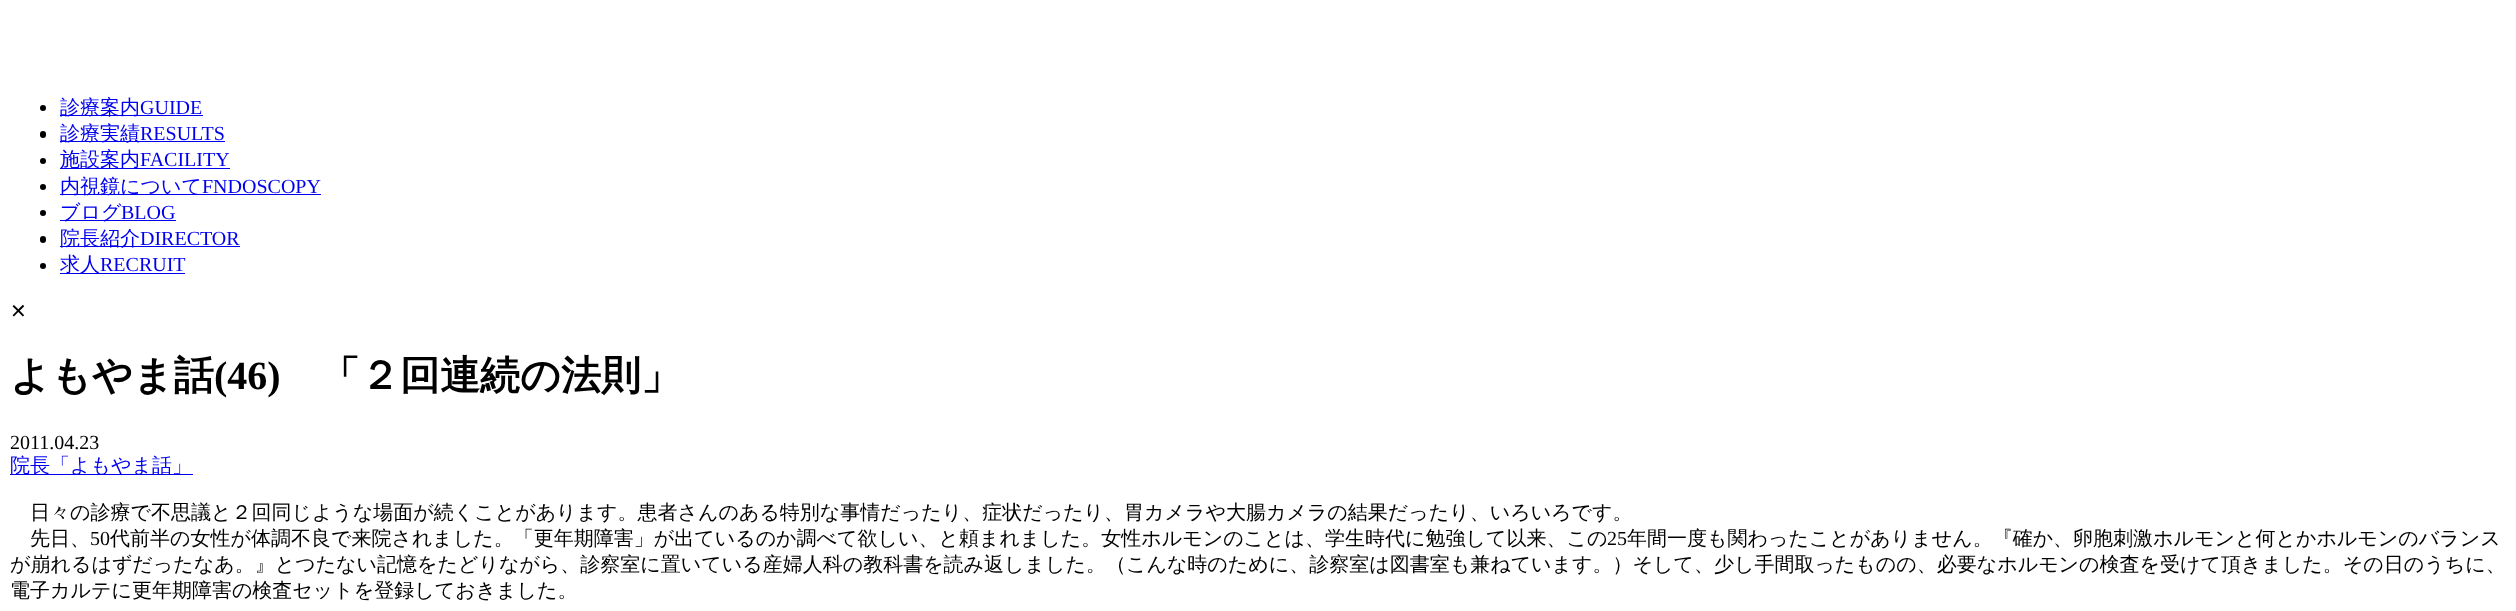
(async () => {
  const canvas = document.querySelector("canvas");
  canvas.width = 2516;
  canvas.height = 611;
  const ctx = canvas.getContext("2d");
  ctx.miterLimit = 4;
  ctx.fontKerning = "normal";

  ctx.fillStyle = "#ffffff";
  ctx.fillRect(0, 0, 2516, 611);
  ctx.fillStyle = "#000000";
  ctx.beginPath();
  ctx.arc(43, 108, 3, 0, Math.PI * 2);
  ctx.fill();
  ctx.fillStyle = "#0000ee";
  ctx.fillRect(60, 115, 143, 1);
  ctx.fillStyle = "#000000";
  ctx.beginPath();
  ctx.roundRect(40, 131, 6, 7, 3);
  ctx.fill();
  ctx.fillStyle = "#0000ee";
  ctx.fillRect(60, 141, 165, 1);
  ctx.fillStyle = "#000000";
  ctx.beginPath();
  ctx.arc(43, 161, 3, 0, Math.PI * 2);
  ctx.fill();
  ctx.fillStyle = "#0000ee";
  ctx.fillRect(60, 168, 170, 1);
  ctx.fillStyle = "#000000";
  ctx.beginPath();
  ctx.arc(43, 187, 3, 0, Math.PI * 2);
  ctx.fill();
  ctx.fillStyle = "#0000ee";
  ctx.fillRect(60, 194, 261, 1);
  ctx.fillStyle = "#000000";
  ctx.beginPath();
  ctx.arc(43, 213, 3, 0, Math.PI * 2);
  ctx.fill();
  ctx.fillStyle = "#0000ee";
  ctx.fillRect(60, 220, 61, 1);
  ctx.fillRect(121, 220, 55, 1);
  ctx.fillStyle = "#000000";
  ctx.beginPath();
  ctx.roundRect(40, 236, 6, 7, 3);
  ctx.fill();
  ctx.fillStyle = "#0000ee";
  ctx.fillRect(60, 246, 180, 1);
  ctx.fillStyle = "#000000";
  ctx.beginPath();
  ctx.arc(43, 266, 3, 0, Math.PI * 2);
  ctx.fill();
  ctx.fillStyle = "#0000ee";
  ctx.fillRect(60, 273, 125, 1);
  ctx.fillRect(10, 474, 183, 1);
  ctx.font = "500 20px WenQuanYi Zen Hei";
  ctx.fillText("診療案内", 60, 114);
  ctx.font = "20px Liberation Serif";
  ctx.fillText("GUIDE", 140, 114);
  ctx.font = "500 20px WenQuanYi Zen Hei";
  ctx.fillText("診療実績", 60, 140);
  ctx.font = "20px Liberation Serif";
  ctx.fillText("RESULTS", 140, 140);
  ctx.font = "500 20px WenQuanYi Zen Hei";
  ctx.fillText("施設案内", 60, 166);
  ctx.font = "20px Liberation Serif";
  ctx.fillText("FACILITY", 140, 166);
  ctx.font = "500 20px WenQuanYi Zen Hei";
  ctx.fillText("内視鏡について", 60, 193);
  ctx.font = "20px Liberation Serif";
  ctx.fillText("FNDOSCOPY", 202, 193);
  ctx.font = "500 20px WenQuanYi Zen Hei";
  ctx.fillText("ブログ", 60, 219);
  ctx.font = "20px Liberation Serif";
  ctx.fillText("BLOG", 121, 219);
  ctx.font = "500 20px WenQuanYi Zen Hei";
  ctx.fillText("院長紹介", 60, 245);
  ctx.font = "20px Liberation Serif";
  ctx.fillText("DIRECTOR", 140, 245);
  ctx.font = "500 20px WenQuanYi Zen Hei";
  ctx.fillText("求人", 60, 271);
  ctx.font = "20px Liberation Serif";
  ctx.fillText("RECRUIT", 100, 271);
  ctx.font = "20px DejaVu Sans";
  ctx.fillStyle = "#000000";
  ctx.fillText("✕", 10, 318);
  ctx.font = "bold 40px WenQuanYi Zen Hei";
  ctx.fillText("よもやま話", 10, 389);
  ctx.font = "bold 40px Liberation Serif";
  ctx.fillText("(46)", 214, 389);
  ctx.font = "bold 40px WenQuanYi Zen Hei";
  ctx.fillText("「２回連続の法則」", 320, 389);
  ctx.font = "20px Liberation Serif";
  ctx.fillText("2011.04.23", 10, 449);
  ctx.font = "500 20px WenQuanYi Zen Hei";
  ctx.fillStyle = "#0000ee";
  ctx.fillText("院長「よもやま話」", 10, 472);
  ctx.fillStyle = "#000000";
  ctx.fillText("日々の診療で不思議と２回同じような場面が続くことがあります。患者さんのある特別な事情だったり、症状だったり、胃カメラや大腸カメラの結果だったり、いろいろです。", 30, 519);
  ctx.fillText("先日、", 30, 545);
  ctx.font = "20px Liberation Serif";
  ctx.fillText("50", 90, 545);
  ctx.font = "500 20px WenQuanYi Zen Hei";
  ctx.fillText("代前半の女性が体調不良で来院されました。「更年期障害」が出ているのか調べて欲しい、と頼まれました。女性ホルモンのことは、学生時代に勉強して以来、この", 110, 545);
  ctx.font = "20px Liberation Serif";
  ctx.fillText("25", 1607, 545);
  ctx.font = "500 20px WenQuanYi Zen Hei";
  for (const [text, x, y] of [
    ["年間一度も関わったことがありません。『確か、卵胞刺激ホルモンと何とかホルモンのバランス", 1627, 545],
    ["が崩れるはずだったなあ。』とつたない記憶をたどりながら、診察室に置いている産婦人科の教科書を読み返しました。（こんな時のために、診察室は図書室も兼ねています。）そして、少し手間取ったものの、必要なホルモンの検査を受けて頂きました。その日のうちに、", 10, 571],
    ["電子カルテに更年期障害の検査セットを登録しておきました。", 10, 597],
  ]) {
    ctx.fillText(text, x, y);
  }
})();
